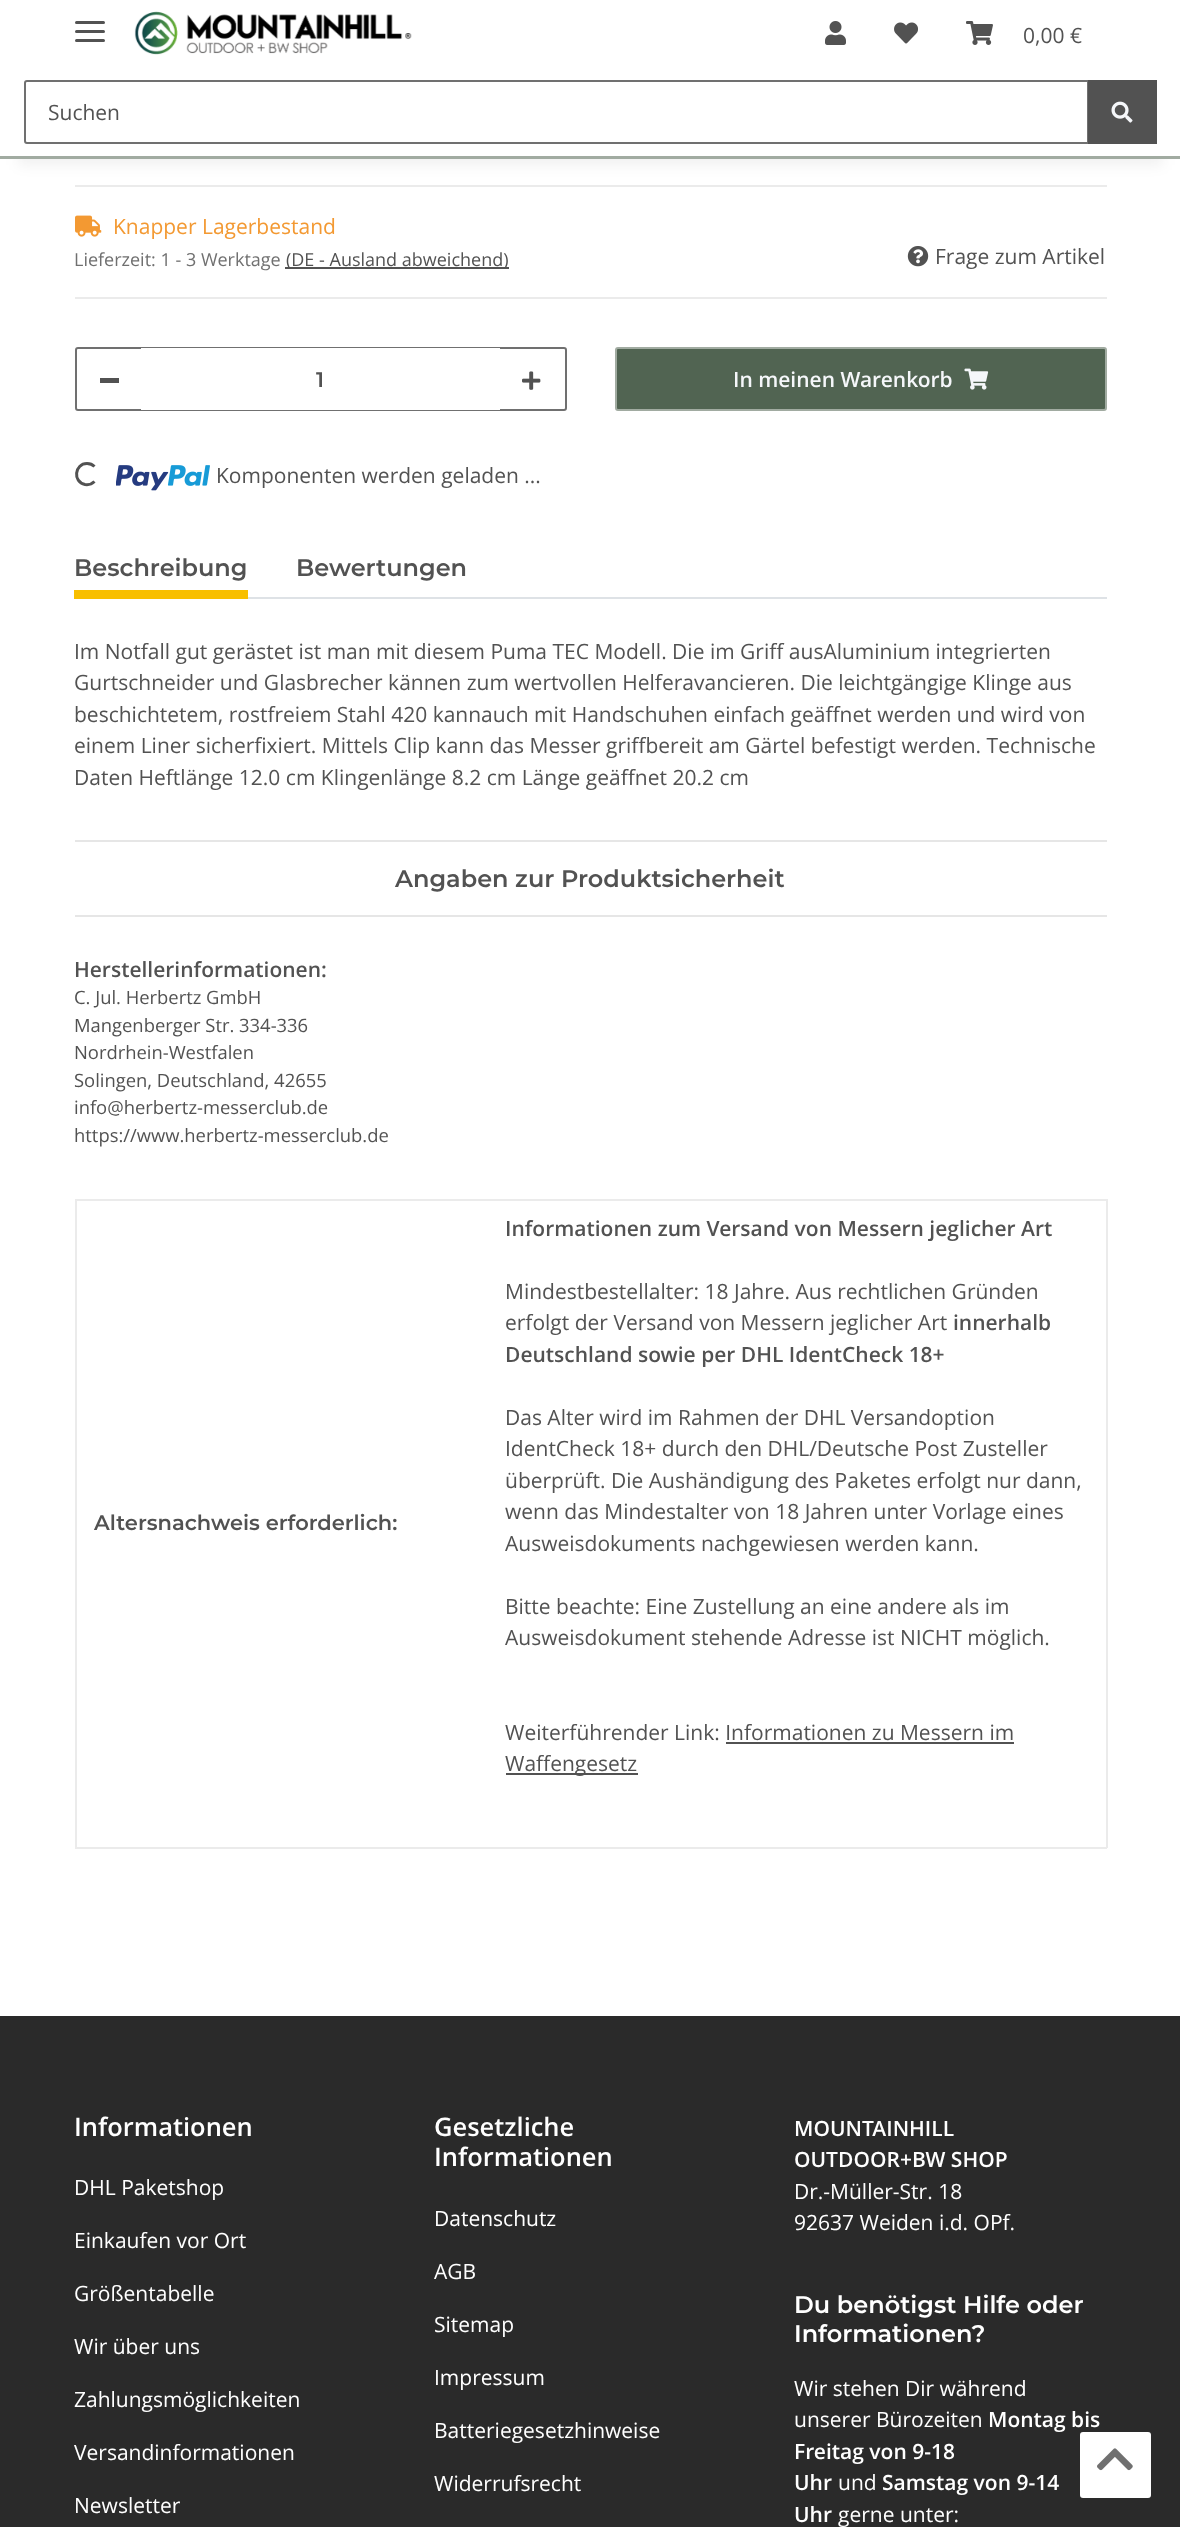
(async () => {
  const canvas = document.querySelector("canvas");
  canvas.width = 1180;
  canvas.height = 2527;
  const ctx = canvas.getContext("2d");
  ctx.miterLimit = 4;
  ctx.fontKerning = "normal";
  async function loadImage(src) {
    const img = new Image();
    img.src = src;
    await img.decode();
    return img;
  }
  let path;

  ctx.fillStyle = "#2a2a2a";
  ctx.fillRect(0, 0, 1180, 2527);
  ctx.fillStyle = "#ffffff";
  ctx.fillRect(0, 159, 1180, 1857);
  ctx.fillStyle = "#ebebeb";
  ctx.fillRect(75, 185, 1032, 2);
  ctx.fillStyle = "rgba(0, 0, 0, 0.06)";
  ctx.filter = "blur(7px)";
  ctx.beginPath();
  ctx.rect(18, 42, 1145, 123);
  ctx.fill();
  ctx.filter = "none";
  ctx.fillStyle = "#ffffff";
  ctx.fillRect(0, 0, 1180, 156);
  ctx.fillStyle = "#a1aba1";
  ctx.fillRect(0, 156, 1180, 3);
  ctx.fillStyle = "#525252";
  ctx.beginPath();
  ctx.roundRect(75, 30, 30, 3, 1.5);
  ctx.fill();
  ctx.beginPath();
  ctx.roundRect(75, 21, 30, 3, 1.5);
  ctx.fill();
  ctx.beginPath();
  ctx.roundRect(75, 39, 30, 3, 1.5);
  ctx.fill();
  ctx.drawImage(await loadImage("img/1.png"), 134, 11, 278, 44);
  ctx.drawImage(await loadImage("img/2.png"), 825, 21, 21, 24);
  ctx.drawImage(await loadImage("img/3.png"), 894, 22, 24, 22);
  ctx.drawImage(await loadImage("img/4.png"), 966, 21, 27, 24);
  ctx.beginPath();
  ctx.roundRect(25, 81, 1063, 62, [2, 0, 0, 2]);
  ctx.strokeStyle = "#707070";
  ctx.lineWidth = 2;
  ctx.stroke();
  ctx.fillRect(1088, 80, 69, 64);
  ctx.drawImage(await loadImage("img/5.png"), 1111, 101, 22, 22);
  ctx.fillStyle = "#ebebeb";
  ctx.fillRect(75, 297, 1032, 2);
  ctx.drawImage(await loadImage("img/6.png"), 75, 215, 27, 22);
  ctx.fillStyle = "#525252";
  ctx.fillRect(285, 267, 224, 2);
  ctx.drawImage(await loadImage("img/7.png"), 907, 246, 22, 21);
  ctx.beginPath();
  ctx.roundRect(76, 348, 490, 62, 2);
  ctx.stroke();
  ctx.fillRect(100, 378, 19, 5);
  ctx.fillStyle = "#ffffff";
  ctx.fillRect(141, 348, 359, 62);
  ctx.drawImage(await loadImage("img/8.png"), 522, 371, 19, 19);
  ctx.fillStyle = "#516452";
  ctx.beginPath();
  ctx.roundRect(616, 348, 490, 62, 2);
  ctx.fill();
  ctx.strokeStyle = "#a1aba1";
  ctx.stroke();
  ctx.drawImage(await loadImage("img/9.png"), 964, 368, 25, 22);
  path = new Path2D("M94.5 481.5C92 484 88.5 485 85 484.5C72.5 482 74.5 463.5 87 463.5C90 463.5 92.5 464.5 94.5 466.5");
  ctx.strokeStyle = "#525252";
  ctx.lineWidth = 3;
  ctx.stroke(path);
  ctx.drawImage(await loadImage("img/10.png"), 116, 465, 94, 26);
  for (const [x, y, w, h, color] of [
    [248, 597, 859, 2, "#dee2e6"],
    [74, 590, 174, 9, "#f8bf00"],
    [75, 840, 1032, 2, "#e6e6e6"],
    [75, 915, 1032, 2, "#e6e6e6"],
    [75, 1199, 1032, 2, "#ebebeb"],
    [1106, 1199, 2, 649, "#ebebeb"],
    [75, 1847, 1032, 2, "#ebebeb"],
    [75, 1199, 2, 649, "#ebebeb"],
    [726, 1742, 288, 2, "#525252"],
    [506, 1773, 132, 2, "#525252"],
  ]) {
    ctx.fillStyle = color;
    ctx.fillRect(x, y, w, h);
  }
  ctx.fillStyle = "#ffffff";
  ctx.beginPath();
  ctx.roundRect(1080, 2432, 71, 66, 3);
  ctx.fill();
  ctx.drawImage(await loadImage("img/11.png"), 1097, 2448, 36, 23);
  ctx.font = "21px Open Sans";
  ctx.fillStyle = "#525252";
  ctx.fillText("0,00 €", 1023, 43);
  ctx.fillText("Suchen", 48, 120);
  ctx.fillStyle = "#f39932";
  ctx.fillText("Knapper Lagerbestand", 113, 234);
  ctx.font = "18px Open Sans";
  ctx.fillStyle = "#707070";
  ctx.fillText("Lieferzeit: 1 - 3 Werktage", 74, 266);
  ctx.fillStyle = "#525252";
  ctx.fillText("(DE - Ausland abweichend)", 286, 266);
  ctx.font = "21px Open Sans";
  ctx.fillText("Frage zum Artikel", 935, 264);
  ctx.font = "600 21px Montserrat";
  ctx.fillText("1", 316, 387);
  ctx.font = "600 21px Open Sans";
  ctx.fillStyle = "#f5f7fa";
  ctx.fillText("In meinen Warenkorb", 733, 387);
  ctx.font = "21px Open Sans";
  ctx.fillStyle = "#525252";
  ctx.fillText("Komponenten werden geladen ...", 216, 483);
  ctx.font = "600 24px Montserrat";
  ctx.fillText("Beschreibung", 74, 576);
  ctx.fillText("Bewertungen", 296, 576);
  ctx.font = "21px Open Sans";
  for (const [text, x, y] of [
    ["Im Notfall gut gerästet ist man mit diesem Puma TEC Modell. Die im Griff ausAluminium integrierten", 74, 659],
    ["Gurtschneider und Glasbrecher kännen zum wertvollen Helferavancieren. Die leichtgängige Klinge aus", 74, 690],
    ["beschichtetem, rostfreiem Stahl 420 kannauch mit Handschuhen einfach geäffnet werden und wird von", 74, 722],
    ["einem Liner sicherfixiert. Mittels Clip kann das Messer griffbereit am Gärtel befestigt werden. Technische", 74, 753],
    ["Daten Heftlänge 12.0 cm Klingenlänge 8.2 cm Länge geäffnet 20.2 cm", 74, 785],
  ]) {
    ctx.fillText(text, x, y);
  }
  ctx.font = "600 24px Montserrat";
  ctx.fillText("Angaben zur Produktsicherheit", 395, 887);
  ctx.font = "600 21px Open Sans";
  ctx.fillText("Herstellerinformationen:", 74, 977);
  ctx.font = "18.4px Open Sans";
  for (const [text, x, y] of [
    ["C. Jul. Herbertz GmbH", 74, 1004],
    ["Mangenberger Str. 334-336", 74, 1032],
    ["Nordrhein-Westfalen", 74, 1059],
    ["Solingen, Deutschland, 42655", 74, 1087],
    ["info@herbertz-messerclub.de", 74, 1114],
    ["https://www.herbertz-messerclub.de", 74, 1142],
  ]) {
    ctx.fillText(text, x, y);
  }
  ctx.font = "600 21px Montserrat";
  ctx.fillText("Altersnachweis erforderlich:", 94, 1530);
  ctx.font = "600 21px Open Sans";
  ctx.fillText("Informationen zum Versand von Messern jeglicher Art", 505, 1236);
  ctx.font = "21px Open Sans";
  ctx.fillText("Mindestbestellalter: 18 Jahre. Aus rechtlichen Gründen", 505, 1299);
  ctx.fillText("erfolgt der Versand von Messern jeglicher Art", 505, 1330);
  ctx.font = "600 21px Open Sans";
  ctx.fillText("innerhalb", 953, 1330);
  ctx.fillText("Deutschland sowie per DHL IdentCheck 18+", 505, 1362);
  ctx.font = "21px Open Sans";
  for (const [text, x, y] of [
    ["Das Alter wird im Rahmen der DHL Versandoption", 505, 1425],
    ["IdentCheck 18+ durch den DHL/Deutsche Post Zusteller", 505, 1456],
    ["überprüft. Die Aushändigung des Paketes erfolgt nur dann,", 505, 1488],
    ["wenn das Mindestalter von 18 Jahren unter Vorlage eines", 505, 1519],
    ["Ausweisdokuments nachgewiesen werden kann.", 505, 1551],
    ["Bitte beachte: Eine Zustellung an eine andere als im", 505, 1614],
    ["Ausweisdokument stehende Adresse ist NICHT möglich.", 505, 1645],
    ["Weiterführender Link: Informationen zu Messern im", 505, 1740],
    ["Waffengesetz", 505, 1771],
  ]) {
    ctx.fillText(text, x, y);
  }
  ctx.font = "600 25.5px Open Sans";
  ctx.fillStyle = "#ffffff";
  ctx.fillText("Informationen", 74, 2136);
  ctx.font = "21px Open Sans";
  for (const [text, x, y] of [
    ["DHL Paketshop", 74, 2195],
    ["Einkaufen vor Ort", 74, 2248],
    ["Größentabelle", 74, 2301],
    ["Wir über uns", 74, 2354],
    ["Zahlungsmöglichkeiten", 74, 2407],
    ["Versandinformationen", 74, 2460],
    ["Newsletter", 74, 2513],
  ]) {
    ctx.fillText(text, x, y);
  }
  ctx.font = "600 25.5px Open Sans";
  ctx.fillText("Gesetzliche", 434, 2136);
  ctx.fillText("Informationen", 434, 2166);
  ctx.font = "21px Open Sans";
  for (const [text, x, y] of [
    ["Datenschutz", 434, 2226],
    ["AGB", 434, 2279],
    ["Sitemap", 434, 2332],
    ["Impressum", 434, 2385],
    ["Batteriegesetzhinweise", 434, 2438],
    ["Widerrufsrecht", 434, 2491],
  ]) {
    ctx.fillText(text, x, y);
  }
  ctx.font = "600 21px Open Sans";
  ctx.fillText("MOUNTAINHILL", 794, 2136);
  ctx.fillText("OUTDOOR+BW SHOP", 794, 2167);
  ctx.font = "21px Open Sans";
  ctx.fillText("Dr.-Müller-Str. 18", 794, 2199);
  ctx.fillText("92637 Weiden i.d. OPf.", 794, 2230);
  ctx.font = "600 24px Montserrat";
  ctx.fillText("Du benötigst Hilfe oder", 794, 2313);
  ctx.fillText("Informationen?", 794, 2342);
  ctx.font = "21px Open Sans";
  ctx.fillText("Wir stehen Dir während", 794, 2396);
  ctx.fillText("unserer Bürozeiten", 794, 2427);
  ctx.font = "600 21px Open Sans";
  for (const [text, x, y] of [
    ["Montag bis", 988, 2427],
    ["Freitag von 9-18", 794, 2459],
    ["Uhr", 794, 2490],
  ]) {
    ctx.fillText(text, x, y);
  }
  ctx.font = "21px Open Sans";
  ctx.fillText("und", 838, 2490);
  ctx.font = "600 21px Open Sans";
  ctx.fillText("Samstag von 9-14", 882, 2490);
  ctx.fillText("Uhr", 794, 2522);
  ctx.font = "21px Open Sans";
  ctx.fillText("gerne unter:", 838, 2522);
})();
